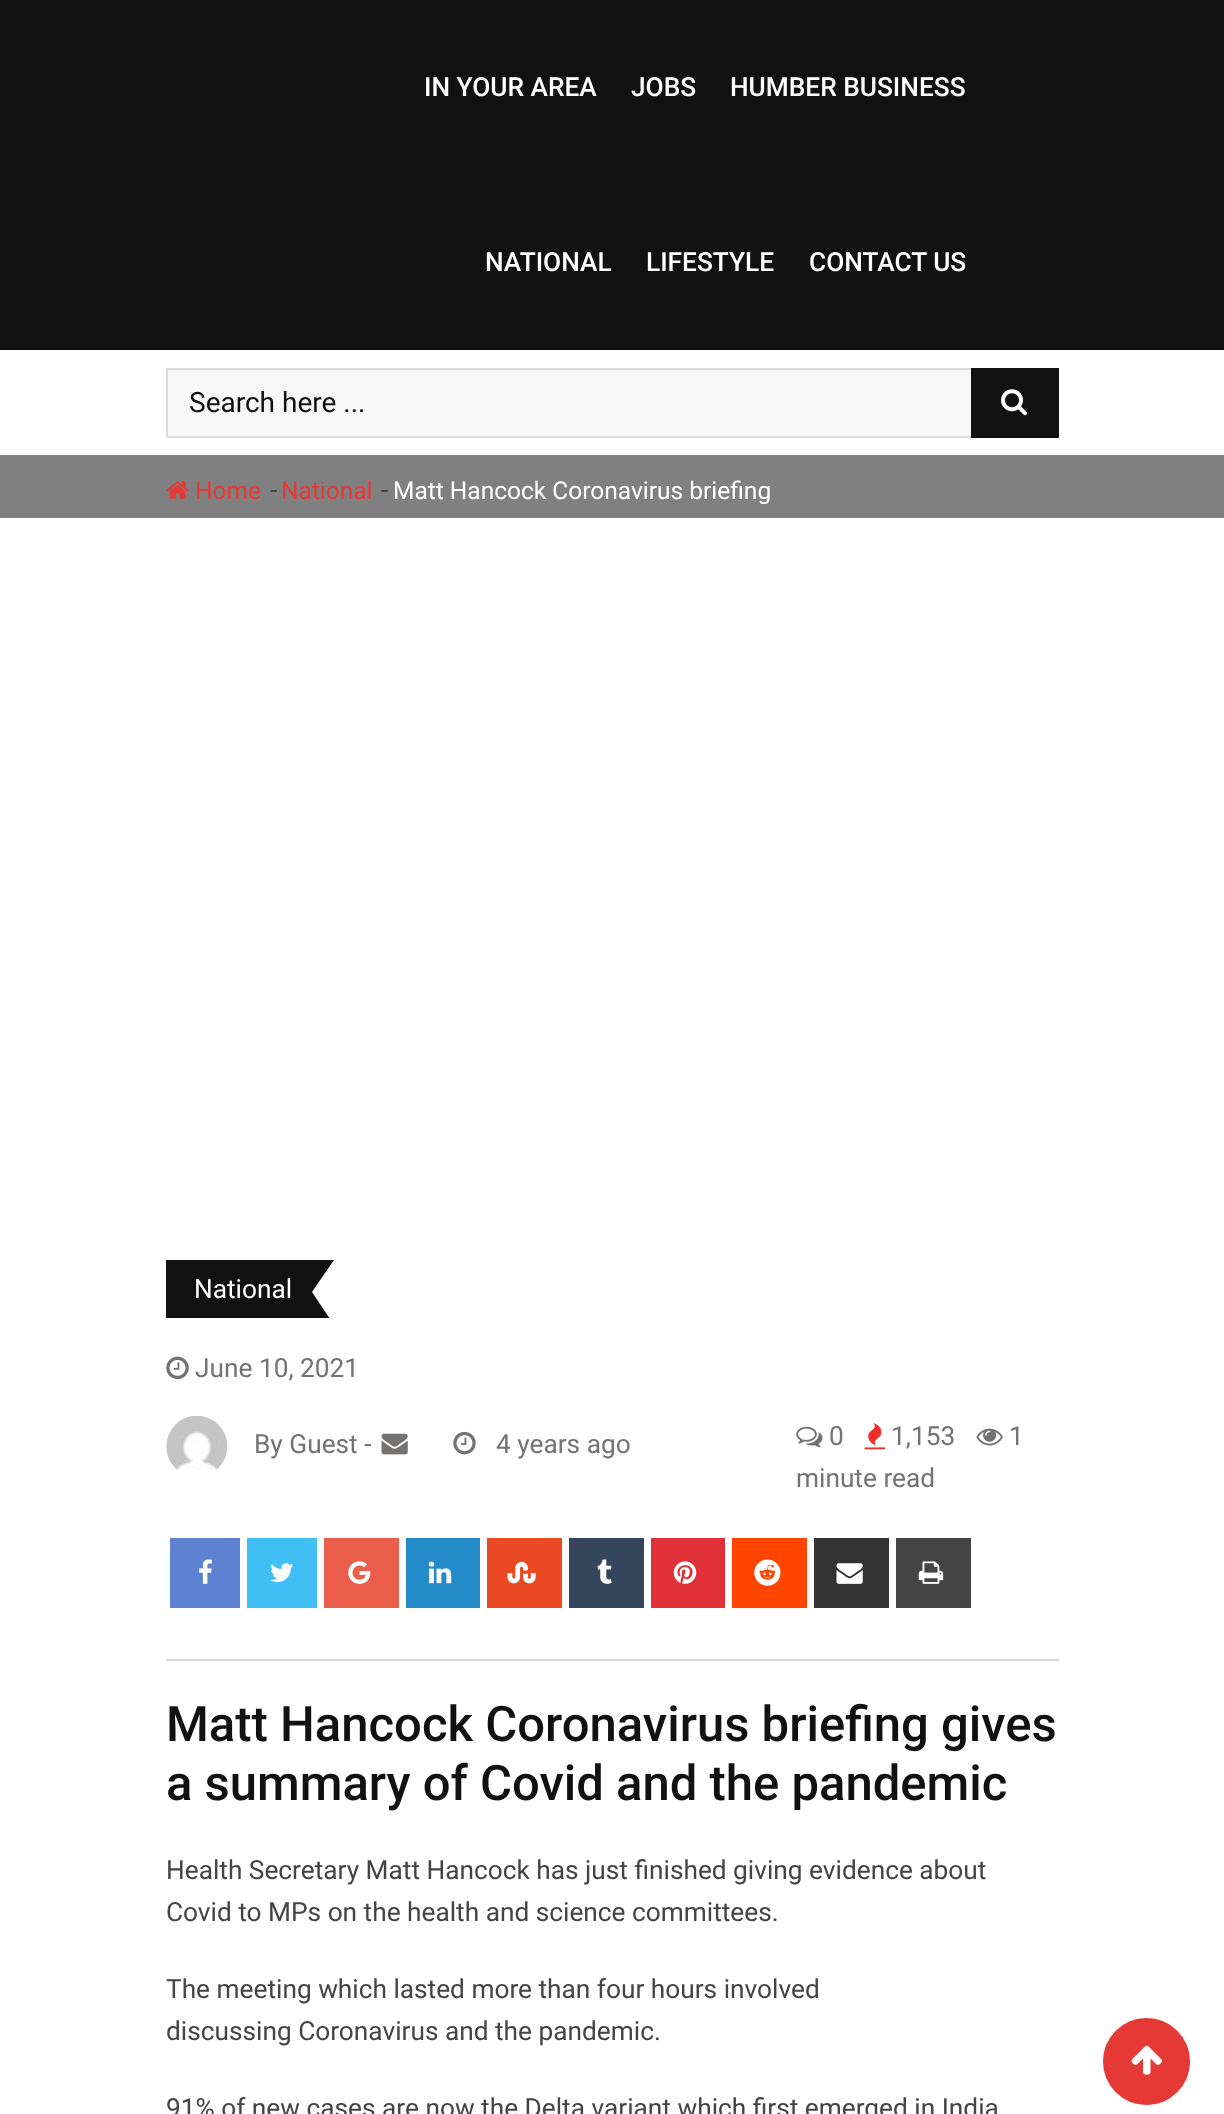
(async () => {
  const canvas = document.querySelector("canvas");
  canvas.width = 1224;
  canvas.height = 2114;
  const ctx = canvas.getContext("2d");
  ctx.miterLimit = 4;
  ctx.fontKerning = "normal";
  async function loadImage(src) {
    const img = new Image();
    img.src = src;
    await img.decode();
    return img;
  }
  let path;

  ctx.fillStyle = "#ffffff";
  ctx.fillRect(0, 0, 1224, 2114);
  ctx.fillStyle = "#111111";
  ctx.fillRect(0, 0, 1224, 350);
  ctx.fillStyle = "#f8f8f8";
  ctx.fillRect(168, 370, 803, 66);
  ctx.strokeStyle = "#dcdcdc";
  ctx.lineWidth = 2;
  ctx.strokeRect(167, 369, 891, 68);
  ctx.fillStyle = "#111111";
  ctx.fillRect(971, 368, 88, 70);
  ctx.drawImage(await loadImage("img/1.png"), 1001, 389, 26, 27);
  ctx.fillStyle = "#808080";
  ctx.fillRect(0, 455, 1224, 63);
  ctx.drawImage(await loadImage("img/2.png"), 166, 481, 23, 18);
  ctx.fillStyle = "#111111";
  ctx.fillRect(166, 1260, 168, 58);
  ctx.fillStyle = "#ffffff";
  path = new Path2D("M334 1260V1325L312 1292Z");
  ctx.fill(path);
  ctx.drawImage(await loadImage("img/3.png"), 166, 1356, 23, 24);
  ctx.drawImage(await loadImage("img/4.png"), 166, 1416, 62, 55);
  ctx.drawImage(await loadImage("img/5.png"), 381, 1433, 27, 22);
  ctx.drawImage(await loadImage("img/6.png"), 453, 1431, 23, 24);
  ctx.drawImage(await loadImage("img/7.png"), 976, 1428, 27, 18);
  ctx.drawImage(await loadImage("img/8.png"), 796, 1426, 27, 22);
  ctx.drawImage(await loadImage("img/9.png"), 864, 1423, 22, 27);
  ctx.fillStyle = "#5d82d1";
  ctx.fillRect(170, 1538, 70, 70);
  ctx.drawImage(await loadImage("img/10.png"), 199, 1559, 13, 25);
  ctx.fillStyle = "#40bff5";
  ctx.fillRect(247, 1538, 70, 70);
  ctx.drawImage(await loadImage("img/11.png"), 270, 1563, 24, 19);
  ctx.fillStyle = "#eb5e4c";
  ctx.fillRect(324, 1538, 75, 70);
  ctx.drawImage(await loadImage("img/12.png"), 348, 1561, 23, 23);
  ctx.fillStyle = "#238cc8";
  ctx.fillRect(406, 1538, 74, 70);
  ctx.drawImage(await loadImage("img/13.png"), 428, 1561, 24, 23);
  ctx.fillStyle = "#eb4924";
  ctx.fillRect(487, 1538, 75, 70);
  ctx.drawImage(await loadImage("img/14.png"), 507, 1561, 29, 23);
  ctx.fillStyle = "#35465c";
  ctx.fillRect(569, 1538, 75, 70);
  ctx.drawImage(await loadImage("img/15.png"), 597, 1559, 15, 25);
  ctx.fillStyle = "#e13138";
  ctx.fillRect(651, 1538, 74, 70);
  ctx.drawImage(await loadImage("img/16.png"), 673, 1561, 24, 23);
  ctx.fillStyle = "#ff4500";
  ctx.fillRect(732, 1538, 75, 70);
  ctx.drawImage(await loadImage("img/17.png"), 754, 1559, 27, 27);
  ctx.fillStyle = "#333333";
  ctx.fillRect(814, 1538, 75, 70);
  ctx.drawImage(await loadImage("img/18.png"), 836, 1563, 27, 21);
  ctx.fillStyle = "#444444";
  ctx.fillRect(896, 1538, 75, 70);
  ctx.drawImage(await loadImage("img/19.png"), 918, 1561, 26, 23);
  ctx.fillStyle = "#d7d7d7";
  ctx.fillRect(166, 1659, 893, 2);
  ctx.fillStyle = "#e53935";
  ctx.beginPath();
  ctx.arc(1146.5, 2061.5, 41.5, 0, Math.PI * 2);
  ctx.fill();
  ctx.strokeStyle = "#e53935";
  ctx.lineWidth = 4;
  ctx.stroke();
  ctx.drawImage(await loadImage("img/20.png"), 1131, 2045, 31, 30);
  ctx.font = "500 26.25px Roboto";
  ctx.fillStyle = "#ffffff";
  for (const [text, x, y] of [
    ["IN YOUR AREA", 424, 96],
    ["JOBS", 631, 96],
    ["HUMBER BUSINESS", 730, 96],
    ["NATIONAL", 485, 271],
    ["LIFESTYLE", 646, 271],
    ["CONTACT US", 809, 271],
  ]) {
    ctx.fillText(text, x, y);
  }
  ctx.font = "28px Roboto";
  ctx.fillStyle = "#111111";
  ctx.fillText("Search here ...", 189, 412);
  ctx.font = "24.5px Roboto";
  ctx.fillStyle = "#e53935";
  ctx.fillText("Home", 195, 499);
  ctx.font = "italic 26.25px Roboto";
  ctx.fillStyle = "#444444";
  ctx.fillText("-", 268, 499);
  ctx.font = "24.5px Roboto";
  ctx.fillStyle = "#e53935";
  ctx.fillText("National", 281, 499);
  ctx.font = "italic 26.25px Roboto";
  ctx.fillStyle = "#444444";
  ctx.fillText("-", 379, 499);
  ctx.font = "24.5px Roboto";
  ctx.fillStyle = "#ffffff";
  ctx.fillText("Matt Hancock Coronavirus briefing", 393, 499);
  ctx.font = "26.25px Roboto";
  ctx.fillText("National", 194, 1298);
  ctx.fillStyle = "#757272";
  for (const [text, x, y] of [
    ["June 10, 2021", 195, 1377],
    ["By Guest -", 254, 1453],
    ["4 years ago", 496, 1453],
    ["1", 1009, 1445],
    ["minute read", 796, 1487],
    ["0", 829, 1445],
    ["1,153", 891, 1445],
  ]) {
    ctx.fillText(text, x, y);
  }
  ctx.font = "500 49px Roboto";
  ctx.fillStyle = "#111111";
  ctx.fillText("Matt Hancock Coronavirus briefing gives", 166, 1741);
  ctx.fillText("a summary of Covid and the pandemic", 166, 1800);
  ctx.font = "26.25px Roboto";
  ctx.fillStyle = "#444444";
  for (const [text, x, y] of [
    ["Health Secretary Matt Hancock has just finished giving evidence about", 166, 1879],
    ["Covid to MPs on the health and science committees.", 166, 1921],
    ["The meeting which lasted more than four hours involved", 166, 1998],
    ["discussing Coronavirus and the pandemic.", 166, 2040],
    ["91% of new cases are now the Delta variant which first emerged in India", 166, 2117],
  ]) {
    ctx.fillText(text, x, y);
  }
})();
